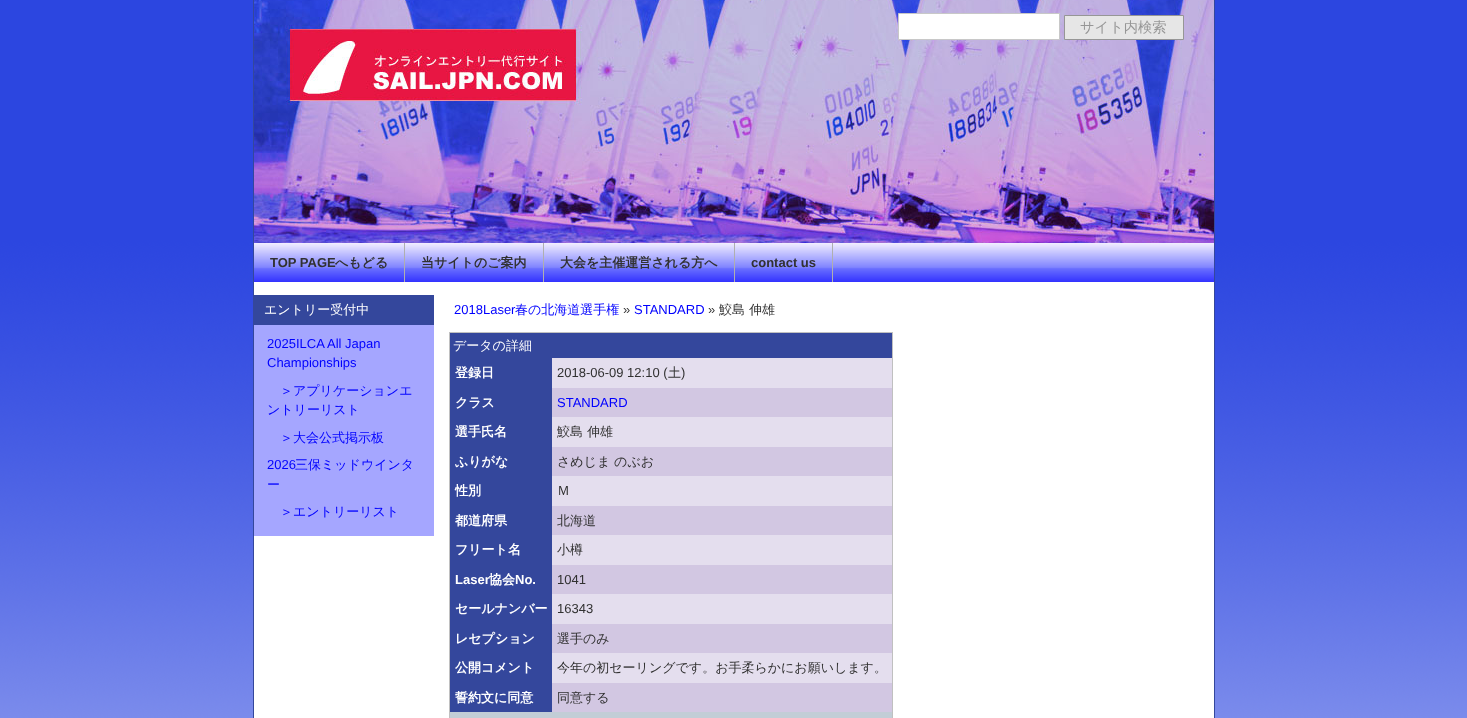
(async () => {
  const canvas = document.querySelector("canvas");
  canvas.width = 1467;
  canvas.height = 718;
  const ctx = canvas.getContext("2d");
  ctx.miterLimit = 4;
  ctx.fontKerning = "normal";
  async function loadImage(src) {
    const img = new Image();
    img.src = src;
    await img.decode();
    return img;
  }

  ctx.fillStyle = "#ffffff";
  ctx.fillRect(0, 0, 1467, 718);
  ctx.drawImage(await loadImage("img/1.png"), 0, 0, 1467, 718);
  ctx.fillRect(254, 282, 960, 436);
  ctx.strokeStyle = "#34479c";
  ctx.strokeRect(253.5, -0.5, 961, 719);
  ctx.drawImage(await loadImage("img/2.png"), 254, 0, 960, 243);
  ctx.beginPath();
  ctx.rect(898.5, 13.5, 161, 26);
  ctx.fill();
  ctx.strokeStyle = "#c8c8c8";
  ctx.stroke();
  ctx.fillStyle = "#e6e6e6";
  ctx.beginPath();
  ctx.rect(1064.5, 15.5, 119, 24);
  ctx.fill();
  ctx.strokeStyle = "#969696";
  ctx.stroke();
  ctx.drawImage(await loadImage("img/3.png"), 254, 243, 960, 39);
  for (const [x, y, w, h, color] of [
    [404, 243, 1, 39, "#afafaf"],
    [543, 243, 1, 39, "#afafaf"],
    [734, 243, 1, 39, "#afafaf"],
    [832, 243, 1, 39, "#afafaf"],
    [254, 325, 180, 211, "#a5a6ff"],
    [254, 295, 180, 30, "#34479c"],
    [449, 332, 444, 1, "#c0c0c0"],
    [892, 332, 1, 386, "#c0c0c0"],
    [449, 712, 443, 6, "#c2cdd6"],
    [449, 332, 1, 386, "#c0c0c0"],
    [450, 333, 442, 25, "#34479c"],
    [450, 358, 102, 354, "#34479c"],
    [552, 358, 340, 30, "#e4deee"],
    [552, 388, 340, 29, "#d2c7e2"],
    [552, 417, 340, 30, "#e4deee"],
    [552, 447, 340, 29, "#d2c7e2"],
    [552, 476, 340, 30, "#e4deee"],
    [552, 506, 340, 29, "#d2c7e2"],
    [552, 535, 340, 30, "#e4deee"],
    [552, 565, 340, 29, "#d2c7e2"],
    [552, 594, 340, 30, "#e4deee"],
    [552, 624, 340, 29, "#d2c7e2"],
    [552, 653, 340, 30, "#e4deee"],
    [552, 683, 340, 29, "#d2c7e2"],
  ]) {
    ctx.fillStyle = color;
    ctx.fillRect(x, y, w, h);
  }
  ctx.font = "500 14.25px WenQuanYi Zen Hei";
  ctx.fillStyle = "#969696";
  ctx.fillText("サイト内検索", 1080, 32);
  ctx.font = "bold 13px Liberation Sans";
  ctx.fillStyle = "#313131";
  ctx.fillText("TOP PAGE", 270, 267);
  ctx.font = "bold 13px WenQuanYi Zen Hei";
  for (const [text, x, y] of [
    ["へもどる", 335, 267],
    ["当サイトのご案内", 421, 267],
    ["大会を主催運営される方へ", 560, 267],
  ]) {
    ctx.fillText(text, x, y);
  }
  ctx.font = "bold 13px Liberation Sans";
  ctx.fillText("contact us", 751, 267);
  ctx.font = "500 13px WenQuanYi Zen Hei";
  ctx.fillStyle = "#ffffff";
  ctx.fillText("エントリー受付中", 264, 314);
  ctx.font = "13px Liberation Sans";
  ctx.fillStyle = "#0000ff";
  ctx.fillText("2025ILCA All Japan", 267, 348);
  ctx.fillText("Championships", 267, 367);
  ctx.font = "500 13px WenQuanYi Zen Hei";
  for (const [text, x, y] of [
    ["＞アプリケーションエ", 280, 395],
    ["ントリーリスト", 267, 414],
    ["＞大会公式掲示板", 280, 442],
  ]) {
    ctx.fillText(text, x, y);
  }
  ctx.font = "13px Liberation Sans";
  ctx.fillText("2026", 267, 469);
  ctx.font = "500 13px WenQuanYi Zen Hei";
  for (const [text, x, y] of [
    ["三保ミッドウインタ", 295, 469],
    ["ー", 267, 489],
    ["＞エントリーリスト", 280, 516],
  ]) {
    ctx.fillText(text, x, y);
  }
  ctx.font = "13px Liberation Sans";
  ctx.fillText("2018Laser", 454, 314);
  ctx.font = "500 13px WenQuanYi Zen Hei";
  ctx.fillText("春の北海道選手権", 515, 314);
  ctx.font = "13px Liberation Sans";
  ctx.fillStyle = "#313131";
  ctx.fillText("»", 623, 314);
  ctx.fillStyle = "#0000ff";
  ctx.fillText("STANDARD", 634, 314);
  ctx.fillStyle = "#313131";
  ctx.fillText("»", 708, 314);
  ctx.font = "500 13px WenQuanYi Zen Hei";
  ctx.fillText("鮫島 伸雄", 719, 314);
  ctx.fillStyle = "#ffffff";
  ctx.fillText("データの詳細", 453, 350);
  ctx.font = "bold 13px WenQuanYi Zen Hei";
  ctx.fillText("登録日", 455, 377);
  ctx.font = "13px Liberation Sans";
  ctx.fillStyle = "#313131";
  ctx.fillText("2018-06-09 12:10 (", 557, 377);
  ctx.font = "500 13px WenQuanYi Zen Hei";
  ctx.fillText("土", 668, 377);
  ctx.font = "13px Liberation Sans";
  ctx.fillText(")", 681, 377);
  ctx.font = "bold 13px WenQuanYi Zen Hei";
  ctx.fillStyle = "#ffffff";
  ctx.fillText("クラス", 455, 407);
  ctx.font = "13px Liberation Sans";
  ctx.fillStyle = "#0000ff";
  ctx.fillText("STANDARD", 557, 407);
  ctx.font = "bold 13px WenQuanYi Zen Hei";
  ctx.fillStyle = "#ffffff";
  ctx.fillText("選手氏名", 455, 436);
  ctx.font = "500 13px WenQuanYi Zen Hei";
  ctx.fillStyle = "#313131";
  ctx.fillText("鮫島 伸雄", 557, 436);
  ctx.font = "bold 13px WenQuanYi Zen Hei";
  ctx.fillStyle = "#ffffff";
  ctx.fillText("ふりがな", 455, 466);
  ctx.font = "500 13px WenQuanYi Zen Hei";
  ctx.fillStyle = "#313131";
  ctx.fillText("さめじま のぶお", 557, 466);
  ctx.font = "bold 13px WenQuanYi Zen Hei";
  ctx.fillStyle = "#ffffff";
  ctx.fillText("性別", 455, 495);
  ctx.font = "500 13px WenQuanYi Zen Hei";
  ctx.fillStyle = "#313131";
  ctx.fillText("Ｍ", 557, 495);
  ctx.font = "bold 13px WenQuanYi Zen Hei";
  ctx.fillStyle = "#ffffff";
  ctx.fillText("都道府県", 455, 525);
  ctx.font = "500 13px WenQuanYi Zen Hei";
  ctx.fillStyle = "#313131";
  ctx.fillText("北海道", 557, 525);
  ctx.font = "bold 13px WenQuanYi Zen Hei";
  ctx.fillStyle = "#ffffff";
  ctx.fillText("フリート名", 455, 554);
  ctx.font = "500 13px WenQuanYi Zen Hei";
  ctx.fillStyle = "#313131";
  ctx.fillText("小樽", 557, 554);
  ctx.font = "bold 13px Liberation Sans";
  ctx.fillStyle = "#ffffff";
  ctx.fillText("Laser", 455, 584);
  ctx.font = "bold 13px WenQuanYi Zen Hei";
  ctx.fillText("協会", 489, 584);
  ctx.font = "bold 13px Liberation Sans";
  ctx.fillText("No.", 515, 584);
  ctx.font = "13px Liberation Sans";
  ctx.fillStyle = "#313131";
  ctx.fillText("1041", 557, 584);
  ctx.font = "bold 13px WenQuanYi Zen Hei";
  ctx.fillStyle = "#ffffff";
  ctx.fillText("セールナンバー", 455, 613);
  ctx.font = "13px Liberation Sans";
  ctx.fillStyle = "#313131";
  ctx.fillText("16343", 557, 613);
  ctx.font = "bold 13px WenQuanYi Zen Hei";
  ctx.fillStyle = "#ffffff";
  ctx.fillText("レセプション", 455, 643);
  ctx.font = "500 13px WenQuanYi Zen Hei";
  ctx.fillStyle = "#313131";
  ctx.fillText("選手のみ", 557, 643);
  ctx.font = "bold 13px WenQuanYi Zen Hei";
  ctx.fillStyle = "#ffffff";
  ctx.fillText("公開コメント", 455, 672);
  ctx.font = "500 13px WenQuanYi Zen Hei";
  ctx.fillStyle = "#313131";
  ctx.fillText("今年の初セーリングです。お手柔らかにお願いします。", 557, 672);
  ctx.font = "bold 13px WenQuanYi Zen Hei";
  ctx.fillStyle = "#ffffff";
  ctx.fillText("誓約文に同意", 455, 702);
  ctx.font = "500 13px WenQuanYi Zen Hei";
  ctx.fillStyle = "#313131";
  ctx.fillText("同意する", 557, 702);
})();
